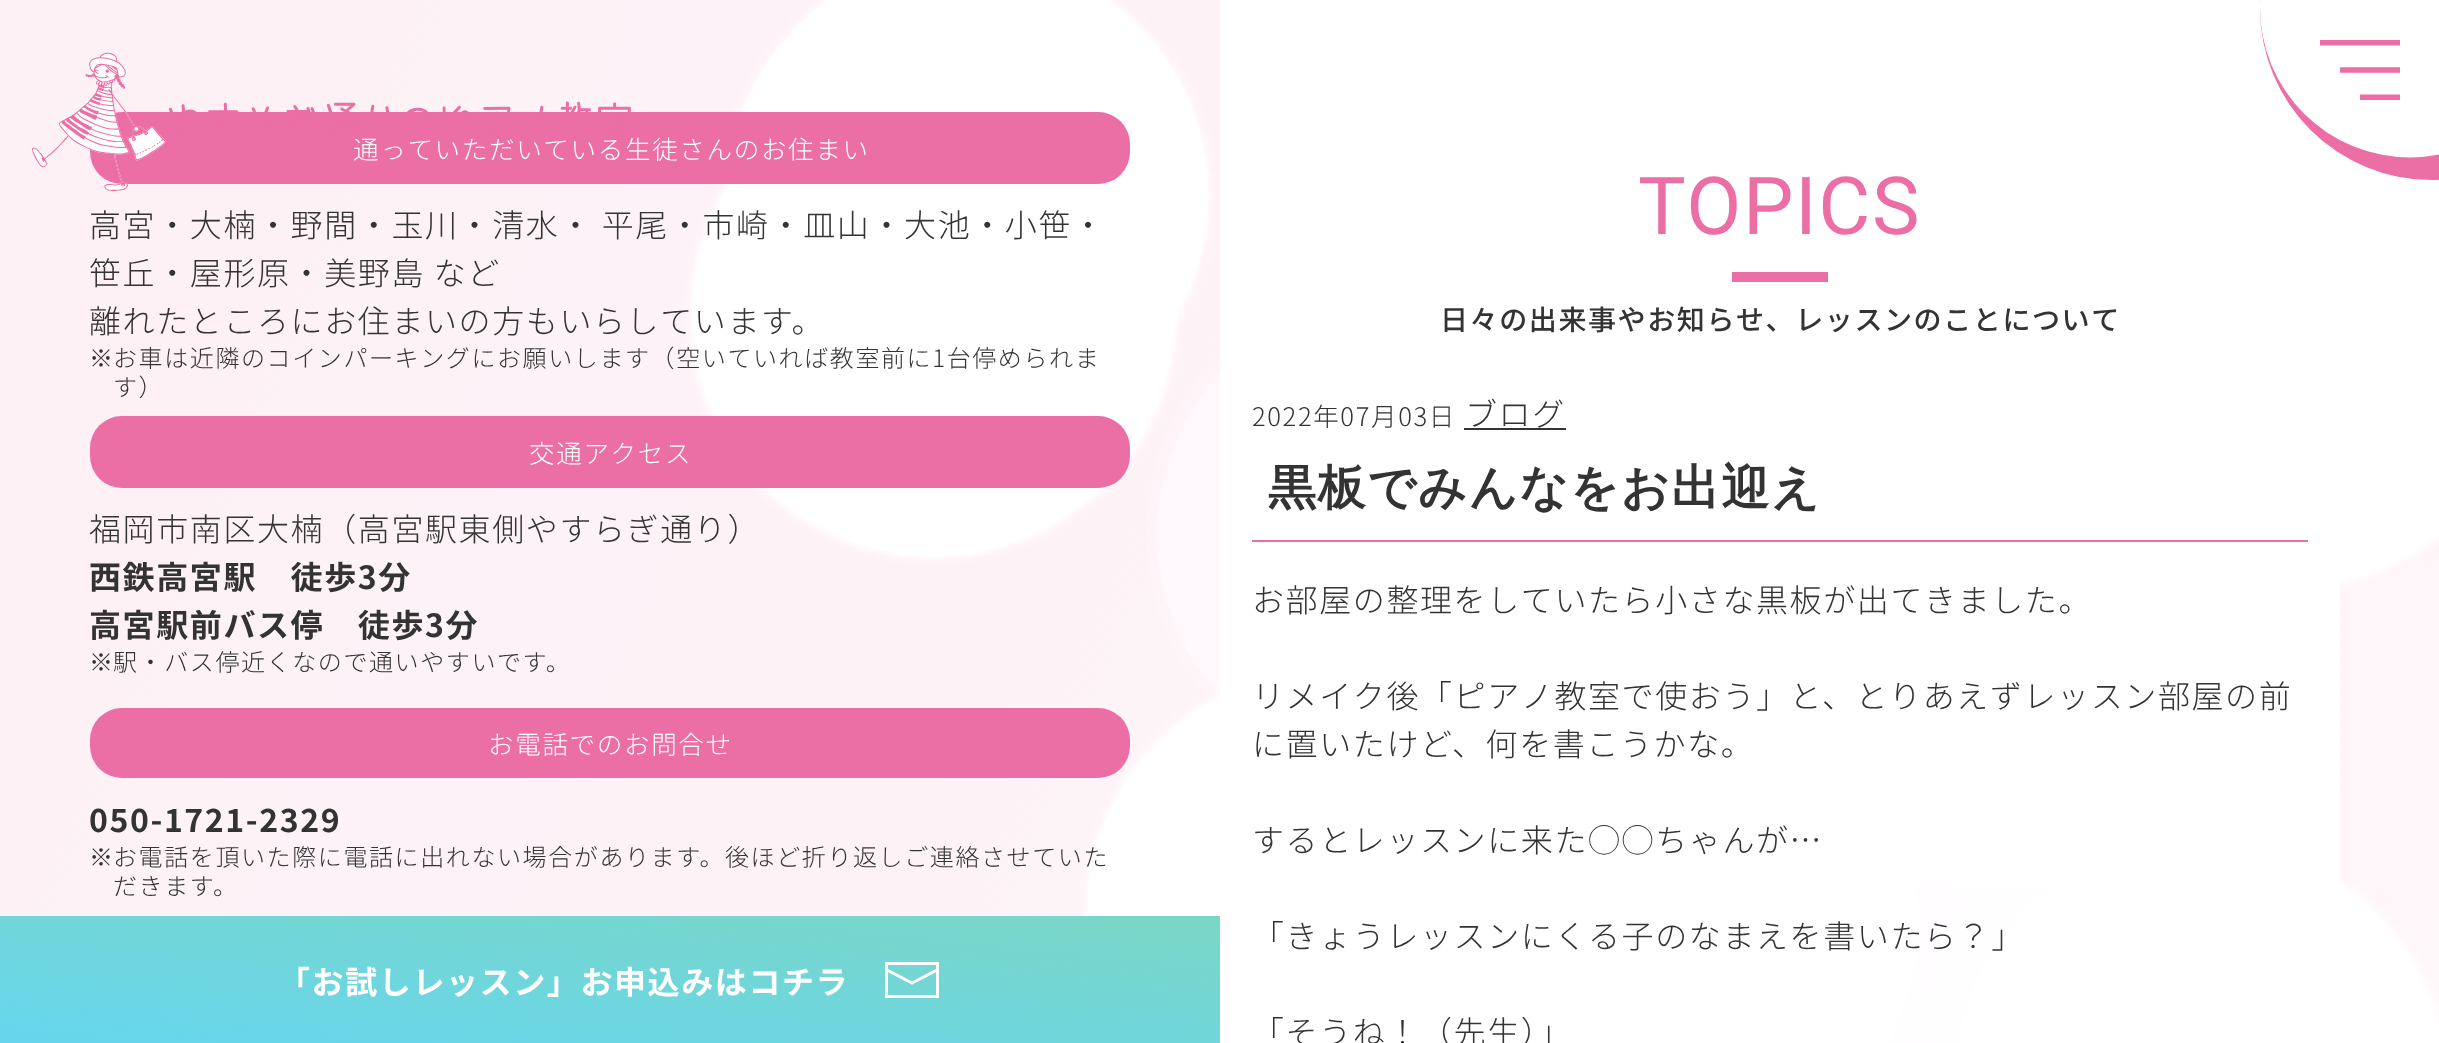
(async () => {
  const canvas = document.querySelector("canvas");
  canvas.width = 2439;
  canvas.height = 1043;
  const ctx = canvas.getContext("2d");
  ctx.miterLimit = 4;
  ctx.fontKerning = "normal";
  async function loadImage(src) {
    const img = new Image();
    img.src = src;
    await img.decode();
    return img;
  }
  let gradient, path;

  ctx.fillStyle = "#ffffff";
  ctx.fillRect(0, 0, 2439, 1043);
  ctx.drawImage(await loadImage("img/1.png"), 0, 0, 2439, 1043);
  ctx.fillRect(1220, 0, 1120, 884);
  ctx.drawImage(await loadImage("img/3.png"), 2260, 0, 179, 180);
  ctx.fillStyle = "#eb6ea5";
  ctx.beginPath();
  ctx.roundRect(90, 112, 1040, 72, 32);
  ctx.fill();
  ctx.beginPath();
  ctx.roundRect(90, 416, 1040, 72, 32);
  ctx.fill();
  ctx.beginPath();
  ctx.roundRect(90, 708, 1040, 70, 32);
  ctx.fill();
  for (const [x, y, w, h, color] of [
    [1732, 272, 96, 10, "#eb6ea5"],
    [1464, 428, 102, 2, "#333333"],
    [1252, 540, 1056, 2, "#eb6ea5"],
  ]) {
    ctx.fillStyle = color;
    ctx.fillRect(x, y, w, h);
  }
  gradient = ctx.createLinearGradient(597, 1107, 623, 853);
  gradient.addColorStop(0, "#66d6ef");
  gradient.addColorStop(1, "#7bd6c5");
  ctx.fillStyle = gradient;
  ctx.fillRect(0, 916, 1220, 127);
  path = new Path2D("M886 969.5L912 983L938 969.5");
  ctx.strokeStyle = "#ffffff";
  ctx.lineWidth = 3;
  ctx.stroke(path);
  ctx.fillStyle = "#ffffff";
  path = new Path2D("M885 962V998H939V962ZM936 995H888V965H936Z");
  ctx.fill(path);
  ctx.letterSpacing = "1.6px";
  ctx.font = "300 25.6px Noto Sans JP";
  ctx.fillText("通っていただいている生徒さんのお住まい", 353, 159);
  ctx.drawImage(await loadImage("img/2.png"), 32, 52, 599, 139);
  ctx.font = "300 32px Noto Sans JP";
  ctx.fillStyle = "#333333";
  for (const [text, x, y] of [
    ["高宮・大楠・野間・玉川・清水・ 平尾・市崎・皿山・大池・小笹・", 89, 237],
    ["笹丘・屋形原・美野島 など", 89, 285],
    ["離れたところにお住まいの方もいらしています。", 89, 333],
  ]) {
    ctx.fillText(text, x, y);
  }
  ctx.font = "300 24px Noto Sans JP";
  for (const [text, x, y] of [
    ["※", 89, 367],
    ["お車は近隣のコインパーキングにお願いします（空いていれば教室前に1台停められま", 113, 367],
    ["す）", 113, 396],
  ]) {
    ctx.fillText(text, x, y);
  }
  ctx.font = "300 25.6px Noto Sans JP";
  ctx.fillStyle = "#ffffff";
  ctx.fillText("交通アクセス", 529, 463);
  ctx.font = "300 32px Noto Sans JP";
  ctx.fillStyle = "#333333";
  ctx.fillText("福岡市南区大楠（高宮駅東側やすらぎ通り）", 89, 541);
  ctx.font = "bold 32px Noto Sans JP";
  ctx.fillText("西鉄高宮駅　徒歩3分", 89, 589);
  ctx.fillText("高宮駅前バス停　徒歩3分", 89, 637);
  ctx.font = "300 24px Noto Sans JP";
  ctx.fillText("※", 89, 671);
  ctx.fillText("駅・バス停近くなので通いやすいです。", 113, 671);
  ctx.font = "300 25.6px Noto Sans JP";
  ctx.fillStyle = "#ffffff";
  ctx.fillText("お電話でのお問合せ", 488, 754);
  ctx.font = "bold 32px Noto Sans JP";
  ctx.fillStyle = "#333333";
  ctx.fillText("050-1721-2329", 89, 832);
  ctx.font = "300 24px Noto Sans JP";
  for (const [text, x, y] of [
    ["※", 89, 866],
    ["お電話を頂いた際に電話に出れない場合があります。後ほど折り返しご連絡させていた", 113, 866],
    ["だきます。", 113, 895],
  ]) {
    ctx.fillText(text, x, y);
  }
  ctx.font = "80px Roboto";
  ctx.fillStyle = "#eb6ea5";
  ctx.fillText("TOPICS", 1638, 234);
  ctx.font = "500 28px Noto Sans JP";
  ctx.fillStyle = "#333333";
  ctx.fillText("日々の出来事やお知らせ、レッスンのことについて", 1440, 330);
  ctx.font = "300 25.6px Noto Sans JP";
  ctx.fillText("2022年07月03日", 1252, 426);
  ctx.font = "300 32px Noto Sans JP";
  ctx.fillText("ブログ", 1465, 426);
  ctx.font = "bold 48px WenQuanYi Zen Hei";
  ctx.fillText("黒板でみんなをお出迎え", 1268, 504);
  ctx.font = "300 32px Noto Sans JP";
  for (const [text, x, y] of [
    ["お部屋の整理をしていたら小さな黒板が出てきました。", 1252, 612],
    ["リメイク後「ピアノ教室で使おう」と、とりあえずレッスン部屋の前", 1252, 708],
    ["に置いたけど、何を書こうかな。", 1252, 756],
    ["するとレッスンに来た◯◯ちゃんが…", 1252, 852],
    ["「きょうレッスンにくる子のなまえを書いたら？」", 1252, 948],
    ["「そうね！（先生）」", 1252, 1044],
  ]) {
    ctx.fillText(text, x, y);
  }
  ctx.font = "bold 32px Noto Sans JP";
  ctx.fillStyle = "#ffffff";
  ctx.fillText("「お試しレッスン」お申込みはコチラ", 278, 994);
})();
